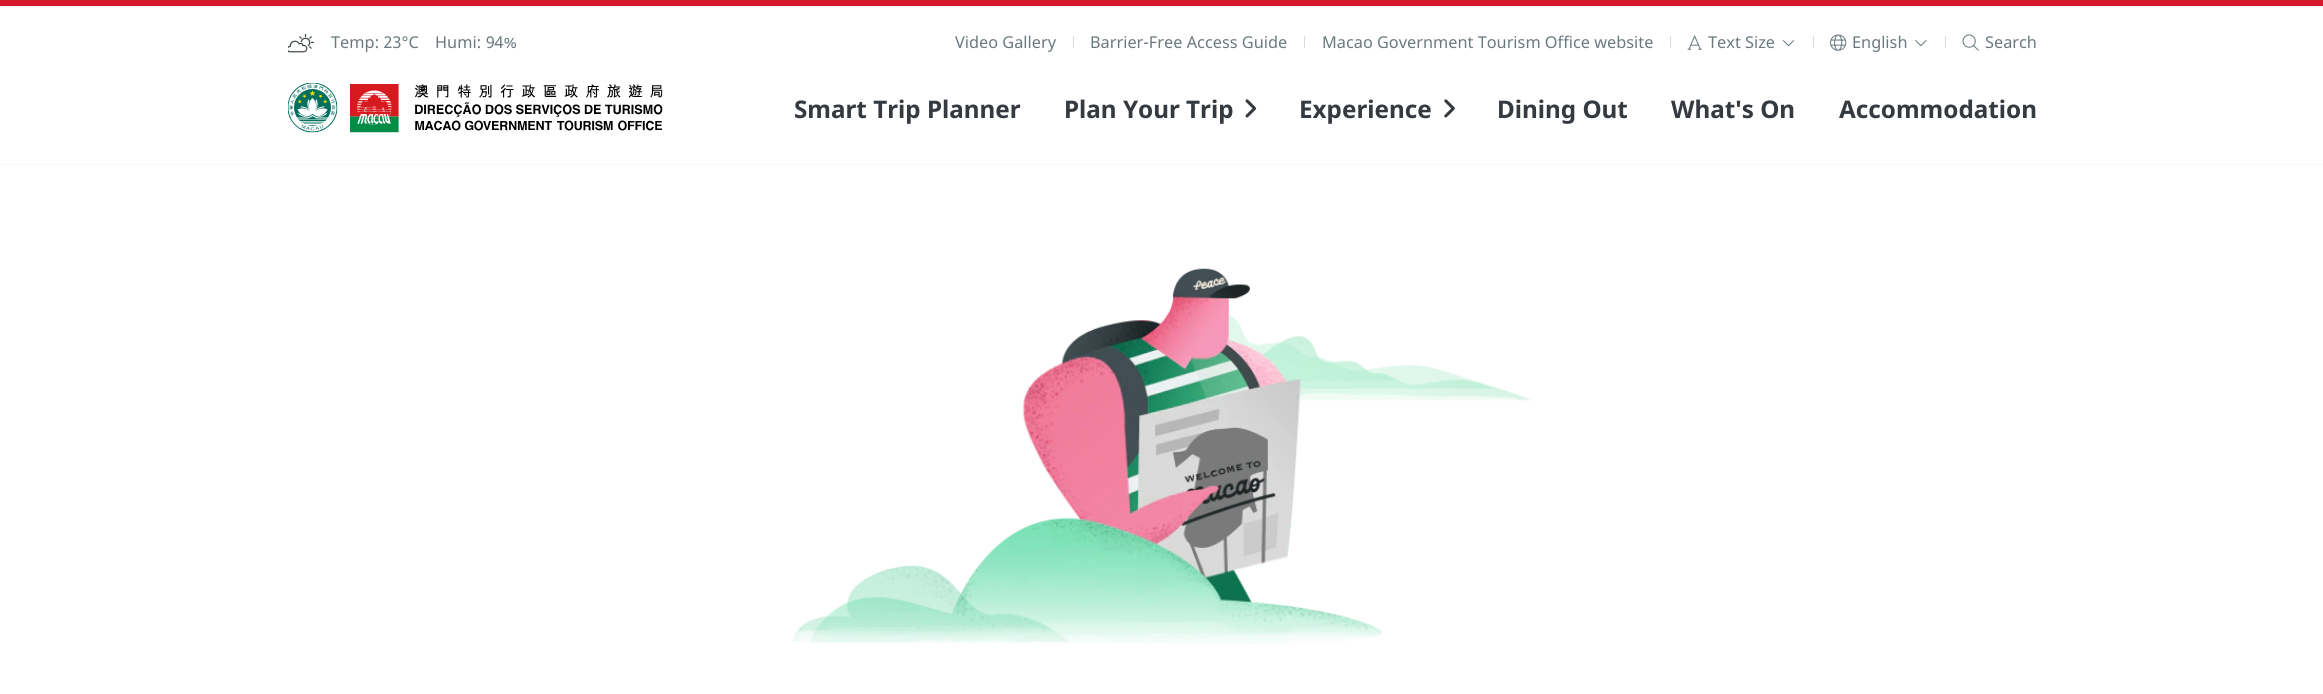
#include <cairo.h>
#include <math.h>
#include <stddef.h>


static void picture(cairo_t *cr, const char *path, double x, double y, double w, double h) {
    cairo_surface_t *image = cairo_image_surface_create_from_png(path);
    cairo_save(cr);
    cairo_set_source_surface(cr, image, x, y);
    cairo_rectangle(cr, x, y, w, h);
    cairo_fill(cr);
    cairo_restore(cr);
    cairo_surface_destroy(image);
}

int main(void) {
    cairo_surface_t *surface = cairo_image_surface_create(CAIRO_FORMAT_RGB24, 2323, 694);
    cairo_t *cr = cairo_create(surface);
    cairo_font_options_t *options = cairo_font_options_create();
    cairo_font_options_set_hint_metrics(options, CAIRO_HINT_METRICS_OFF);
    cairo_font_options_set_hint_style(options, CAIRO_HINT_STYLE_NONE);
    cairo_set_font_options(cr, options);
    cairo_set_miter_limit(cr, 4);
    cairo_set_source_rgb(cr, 1, 1, 1);
    cairo_paint(cr);
    cairo_set_source_rgb(cr, 0.843, 0.098, 0.18);
    cairo_rectangle(cr, 0, 0, 2323, 6);
    cairo_fill(cr);
    cairo_set_source_rgb(cr, 0.976, 0.969, 0.957);
    cairo_rectangle(cr, 0, 164, 2323, 1);
    cairo_fill(cr);
    picture(cr, "img1.png", 288, 34, 26, 19);
    cairo_select_font_face(cr, "Noto Sans", CAIRO_FONT_SLANT_NORMAL, CAIRO_FONT_WEIGHT_NORMAL);
    cairo_set_font_size(cr, 16.3);
    cairo_set_source_rgb(cr, 0.412, 0.475, 0.494);
    cairo_move_to(cr, 331, 48);
    cairo_show_text(cr, "Temp: 23°C");
    cairo_move_to(cr, 435, 48);
    cairo_show_text(cr, "Humi: 94%");
    cairo_move_to(cr, 955, 48);
    cairo_show_text(cr, "Video Gallery");
    cairo_set_source_rgb(cr, 0.855, 0.855, 0.855);
    cairo_rectangle(cr, 1073, 36, 1, 12);
    cairo_fill(cr);
    cairo_set_source_rgb(cr, 0.412, 0.475, 0.494);
    cairo_move_to(cr, 1090, 48);
    cairo_show_text(cr, "Barrier-Free Access Guide");
    cairo_set_source_rgb(cr, 0.855, 0.855, 0.855);
    cairo_rectangle(cr, 1304, 36, 1, 12);
    cairo_fill(cr);
    cairo_set_source_rgb(cr, 0.412, 0.475, 0.494);
    cairo_move_to(cr, 1322, 48);
    cairo_show_text(cr, "Macao Government Tourism Office website");
    cairo_set_source_rgb(cr, 0.855, 0.855, 0.855);
    cairo_rectangle(cr, 1670, 36, 1, 12);
    cairo_fill(cr);
    picture(cr, "img2.png", 1687, 35, 15, 15);
    cairo_set_source_rgb(cr, 0.412, 0.475, 0.494);
    cairo_move_to(cr, 1708, 48);
    cairo_show_text(cr, "Text Size");
    picture(cr, "img3.png", 1782, 40, 12, 7);
    cairo_set_source_rgb(cr, 0.855, 0.855, 0.855);
    cairo_rectangle(cr, 1813, 36, 1, 12);
    cairo_fill(cr);
    picture(cr, "img4.png", 1830, 34, 17, 17);
    cairo_set_source_rgb(cr, 0.412, 0.475, 0.494);
    cairo_move_to(cr, 1852, 48);
    cairo_show_text(cr, "English");
    picture(cr, "img5.png", 1915, 40, 12, 7);
    cairo_set_source_rgb(cr, 0.855, 0.855, 0.855);
    cairo_rectangle(cr, 1945, 36, 1, 12);
    cairo_fill(cr);
    picture(cr, "img6.png", 1962, 34, 17, 17);
    cairo_set_source_rgb(cr, 0.412, 0.475, 0.494);
    cairo_move_to(cr, 1985, 48);
    cairo_show_text(cr, "Search");
    picture(cr, "img7.png", 288, 83, 50, 50);
    picture(cr, "img8.png", 350, 84, 313, 49);
    cairo_select_font_face(cr, "Noto Sans", CAIRO_FONT_SLANT_NORMAL, CAIRO_FONT_WEIGHT_BOLD);
    cairo_set_font_size(cr, 24.25);
    cairo_set_source_rgb(cr, 0.204, 0.227, 0.251);
    cairo_move_to(cr, 794, 118);
    cairo_show_text(cr, "Smart Trip Planner");
    cairo_move_to(cr, 1064, 118);
    cairo_show_text(cr, "Plan Your Trip");
    picture(cr, "img9.png", 1245, 99, 12, 19);
    cairo_move_to(cr, 1299, 118);
    cairo_show_text(cr, "Experience");
    picture(cr, "img10.png", 1444, 99, 11, 19);
    cairo_move_to(cr, 1497, 118);
    cairo_show_text(cr, "Dining Out");
    cairo_move_to(cr, 1671, 118);
    cairo_show_text(cr, "What's On");
    cairo_move_to(cr, 1839, 118);
    cairo_show_text(cr, "Accommodation");
    picture(cr, "img11.png", 792, 268, 739, 376);
    cairo_surface_write_to_png(surface, "page.png");
    cairo_font_options_destroy(options);
    cairo_destroy(cr);
    cairo_surface_destroy(surface);
    return 0;
}
